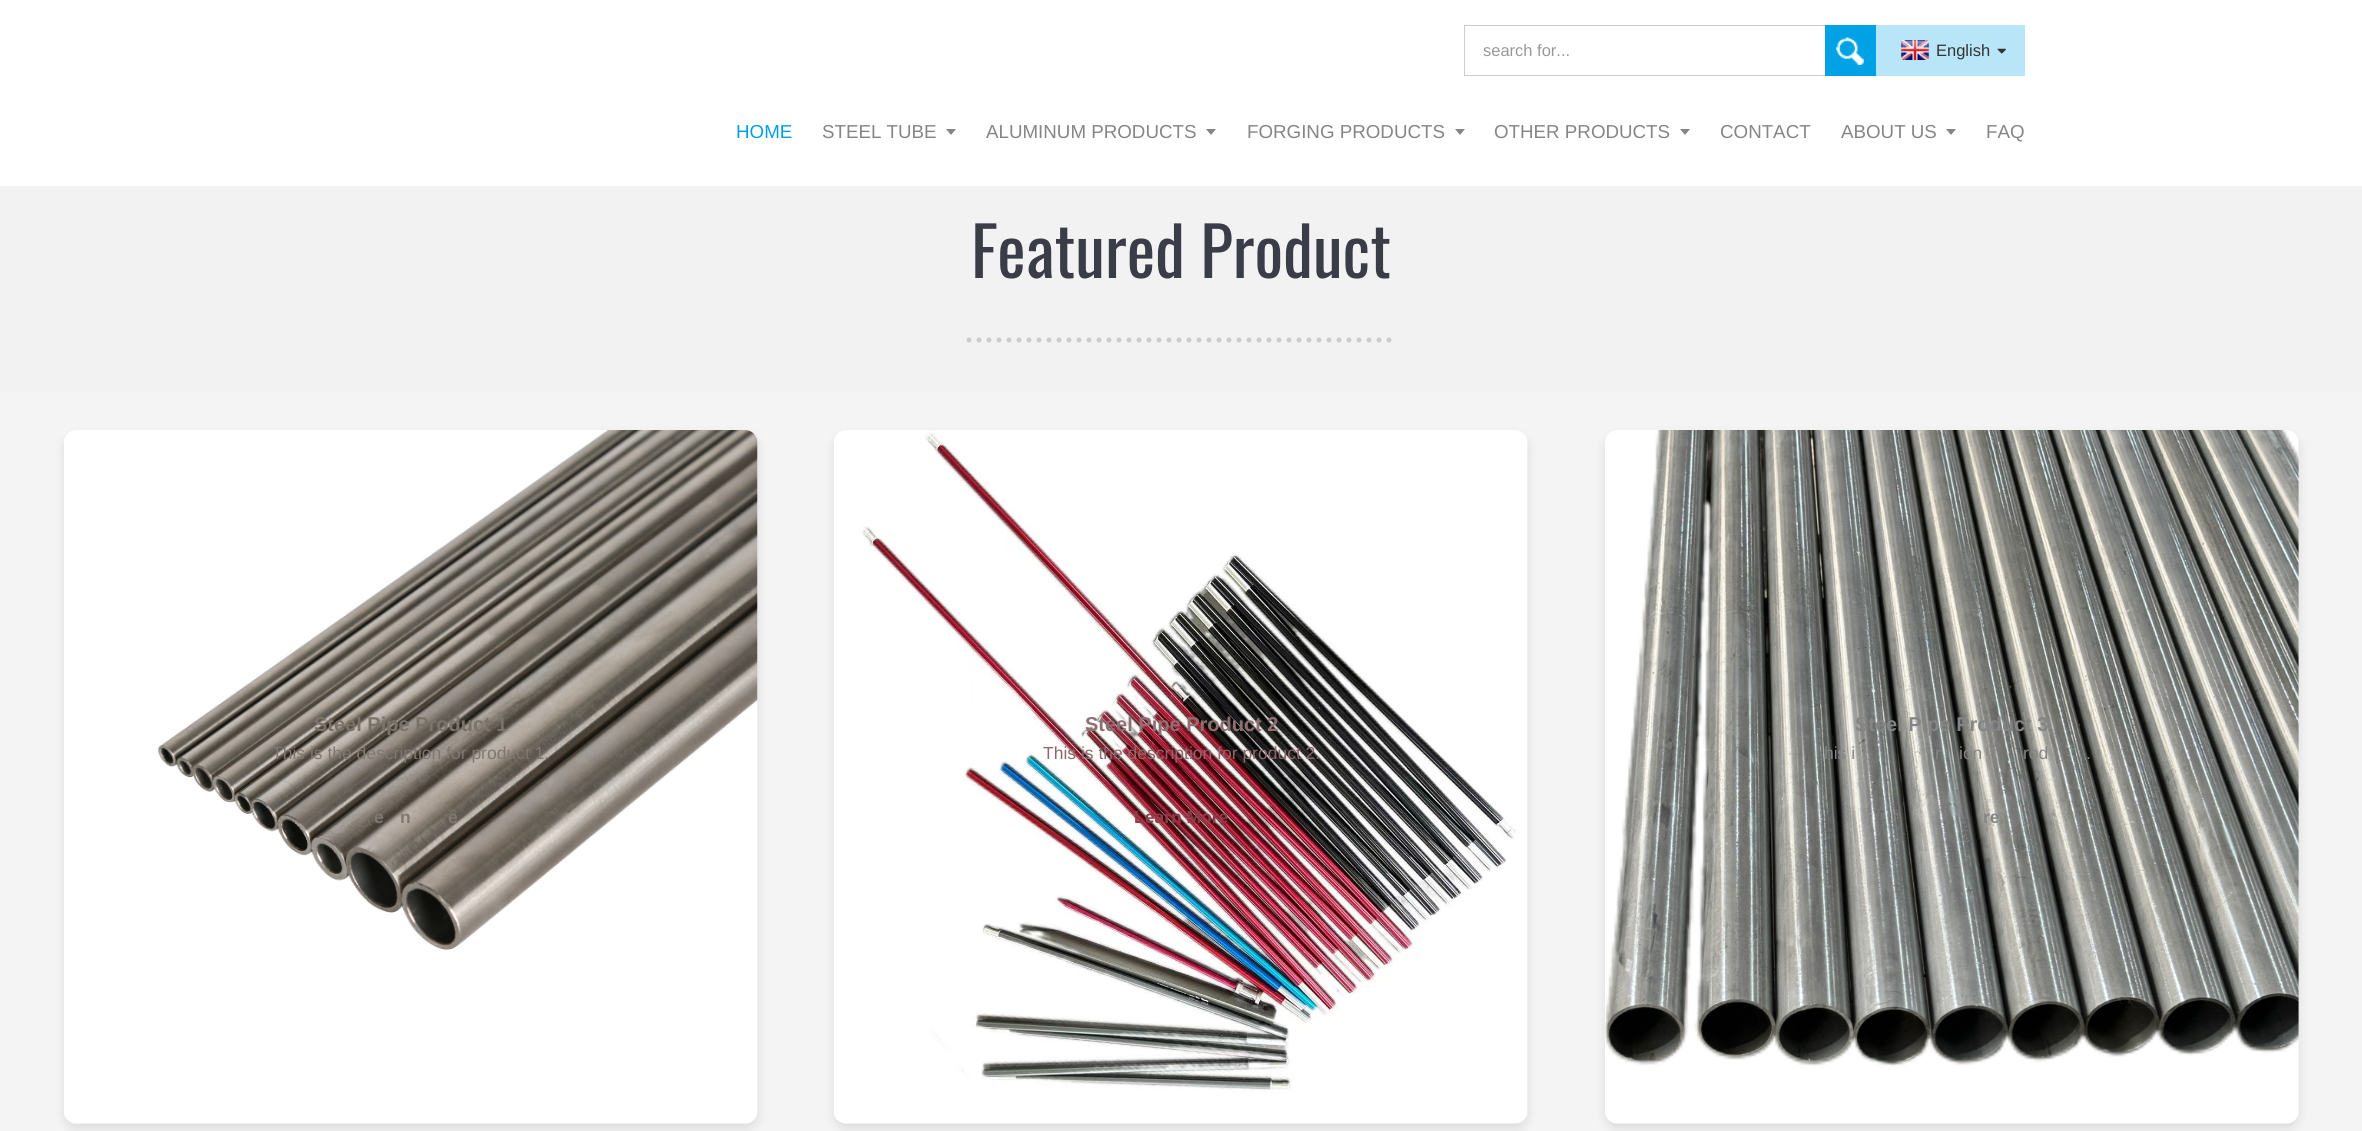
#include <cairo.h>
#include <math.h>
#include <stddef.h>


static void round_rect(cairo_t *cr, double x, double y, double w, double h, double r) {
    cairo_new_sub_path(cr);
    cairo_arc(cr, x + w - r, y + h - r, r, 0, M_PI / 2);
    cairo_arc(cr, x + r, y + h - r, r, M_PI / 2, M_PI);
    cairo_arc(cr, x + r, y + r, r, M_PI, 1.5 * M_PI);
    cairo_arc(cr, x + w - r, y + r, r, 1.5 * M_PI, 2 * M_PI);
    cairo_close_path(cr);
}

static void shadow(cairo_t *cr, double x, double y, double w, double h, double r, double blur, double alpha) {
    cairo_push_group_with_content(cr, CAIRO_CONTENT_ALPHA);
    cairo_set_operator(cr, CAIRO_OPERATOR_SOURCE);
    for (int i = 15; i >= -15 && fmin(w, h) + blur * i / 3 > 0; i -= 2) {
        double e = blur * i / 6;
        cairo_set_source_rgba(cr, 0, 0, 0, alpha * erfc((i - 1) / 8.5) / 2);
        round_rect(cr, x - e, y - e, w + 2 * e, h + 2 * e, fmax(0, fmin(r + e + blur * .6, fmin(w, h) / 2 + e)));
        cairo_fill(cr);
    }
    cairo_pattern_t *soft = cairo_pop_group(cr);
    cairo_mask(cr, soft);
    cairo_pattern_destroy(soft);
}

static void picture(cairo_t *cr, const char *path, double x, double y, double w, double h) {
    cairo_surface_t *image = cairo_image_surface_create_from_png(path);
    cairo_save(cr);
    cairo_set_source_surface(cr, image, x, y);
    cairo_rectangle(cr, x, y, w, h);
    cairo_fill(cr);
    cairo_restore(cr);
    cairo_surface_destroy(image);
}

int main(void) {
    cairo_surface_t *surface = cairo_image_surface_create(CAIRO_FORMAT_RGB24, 2362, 1131);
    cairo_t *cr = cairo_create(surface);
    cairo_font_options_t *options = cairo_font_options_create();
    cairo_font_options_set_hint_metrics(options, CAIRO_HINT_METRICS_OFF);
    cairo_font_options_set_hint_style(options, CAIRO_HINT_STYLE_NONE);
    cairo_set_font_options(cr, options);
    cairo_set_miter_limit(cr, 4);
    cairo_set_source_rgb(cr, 1, 1, 1);
    cairo_paint(cr);
    cairo_rectangle(cr, 1464.5, 25.5, 361, 50);
    cairo_set_source_rgb(cr, 0.804, 0.804, 0.804);
    cairo_set_line_width(cr, 1);
    cairo_stroke(cr);
    cairo_select_font_face(cr, "Liberation Sans", CAIRO_FONT_SLANT_NORMAL, CAIRO_FONT_WEIGHT_NORMAL);
    cairo_set_font_size(cr, 16.5);
    cairo_set_source_rgb(cr, 0.6, 0.6, 0.6);
    cairo_move_to(cr, 1483, 56);
    cairo_show_text(cr, "search for...");
    cairo_set_source_rgb(cr, 0, 0.635, 0.898);
    cairo_rectangle(cr, 1825, 25, 51, 51);
    cairo_fill(cr);
    picture(cr, "img1.png", 1836, 37, 28, 28);
    cairo_set_source_rgb(cr, 0.722, 0.902, 0.969);
    cairo_rectangle(cr, 1876, 25, 149, 51);
    cairo_fill(cr);
    picture(cr, "img2.png", 1901, 40, 28, 20);
    cairo_set_source_rgb(cr, 0.2, 0.2, 0.2);
    cairo_move_to(cr, 1936, 56);
    cairo_show_text(cr, "English");
    picture(cr, "img3.png", 1997, 48, 9, 6);
    cairo_set_font_size(cr, 18.75);
    cairo_set_source_rgb(cr, 0.008, 0.627, 0.882);
    cairo_move_to(cr, 736, 138);
    cairo_show_text(cr, "HOME");
    cairo_set_source_rgb(cr, 0.522, 0.522, 0.522);
    cairo_move_to(cr, 822, 138);
    cairo_show_text(cr, "STEEL TUBE");
    cairo_new_path(cr);
    cairo_move_to(cr, 946, 129);
    cairo_line_to(cr, 956, 129);
    cairo_line_to(cr, 951, 135);
    cairo_close_path(cr);
    cairo_fill(cr);
    cairo_move_to(cr, 986, 138);
    cairo_show_text(cr, "ALUMINUM PRODUCTS");
    cairo_new_path(cr);
    cairo_move_to(cr, 1206, 129);
    cairo_line_to(cr, 1216, 129);
    cairo_line_to(cr, 1211, 135);
    cairo_close_path(cr);
    cairo_fill(cr);
    cairo_move_to(cr, 1247, 138);
    cairo_show_text(cr, "FORGING PRODUCTS");
    cairo_new_path(cr);
    cairo_move_to(cr, 1455, 129);
    cairo_line_to(cr, 1465, 129);
    cairo_line_to(cr, 1460, 135);
    cairo_close_path(cr);
    cairo_fill(cr);
    cairo_move_to(cr, 1494, 138);
    cairo_show_text(cr, "OTHER PRODUCTS");
    cairo_new_path(cr);
    cairo_move_to(cr, 1680, 129);
    cairo_line_to(cr, 1690, 129);
    cairo_line_to(cr, 1685, 135);
    cairo_close_path(cr);
    cairo_fill(cr);
    cairo_move_to(cr, 1720, 138);
    cairo_show_text(cr, "CONTACT");
    cairo_move_to(cr, 1841, 138);
    cairo_show_text(cr, "ABOUT US");
    cairo_new_path(cr);
    cairo_move_to(cr, 1946, 129);
    cairo_line_to(cr, 1956, 129);
    cairo_line_to(cr, 1951, 135);
    cairo_close_path(cr);
    cairo_fill(cr);
    cairo_move_to(cr, 1986, 138);
    cairo_show_text(cr, "FAQ");
    cairo_set_source_rgb(cr, 0.949, 0.949, 0.949);
    cairo_rectangle(cr, 0, 186, 2362, 207);
    cairo_fill(cr);
    cairo_select_font_face(cr, "Oswald", CAIRO_FONT_SLANT_NORMAL, CAIRO_FONT_WEIGHT_NORMAL);
    cairo_set_font_size(cr, 67.5);
    cairo_set_source_rgb(cr, 0.227, 0.235, 0.278);
    cairo_move_to(cr, 971, 278);
    cairo_show_text(cr, "Featured Product");
    cairo_new_path(cr);
    cairo_move_to(cr, 969, 340);
    cairo_line_to(cr, 1394, 340);
    cairo_set_source_rgb(cr, 0.8, 0.8, 0.8);
    cairo_set_line_width(cr, 5);
    cairo_set_line_cap(cr, CAIRO_LINE_CAP_ROUND);
    cairo_set_dash(cr, (double[]){0, 10}, 2, 0);
    cairo_stroke(cr);
    cairo_set_source_rgb(cr, 0.957, 0.957, 0.957);
    cairo_rectangle(cr, 0, 393, 2362, 738);
    cairo_fill(cr);
    cairo_set_source_rgb(cr, 0, 0, 0);
    shadow(cr, 64, 435, 694, 694, 13, 5, 0.1);
    picture(cr, "img4.png", 64, 430, 694, 694);
    cairo_select_font_face(cr, "Liberation Sans", CAIRO_FONT_SLANT_NORMAL, CAIRO_FONT_WEIGHT_BOLD);
    cairo_set_font_size(cr, 20);
    cairo_set_source_rgb(cr, 0.478, 0.451, 0.416);
    cairo_move_to(cr, 314, 731);
    cairo_show_text(cr, "Steel Pipe Product 1");
    cairo_select_font_face(cr, "Liberation Sans", CAIRO_FONT_SLANT_NORMAL, CAIRO_FONT_WEIGHT_NORMAL);
    cairo_set_font_size(cr, 17.5);
    cairo_set_source_rgb(cr, 0.502, 0.471, 0.439);
    cairo_move_to(cr, 272, 759);
    cairo_show_text(cr, "This is the description for product 1.");
    cairo_select_font_face(cr, "Liberation Sans", CAIRO_FONT_SLANT_NORMAL, CAIRO_FONT_WEIGHT_BOLD);
    cairo_move_to(cr, 374, 823);
    cairo_show_text(cr, "e");
    cairo_move_to(cr, 400, 823);
    cairo_show_text(cr, "n");
    cairo_move_to(cr, 448, 823);
    cairo_show_text(cr, "e");
    cairo_set_source_rgb(cr, 0, 0, 0);
    shadow(cr, 834, 435, 694, 694, 13, 5, 0.1);
    picture(cr, "img5.png", 834, 430, 694, 694);
    cairo_set_font_size(cr, 20);
    cairo_set_source_rgb(cr, 0.557, 0.439, 0.451);
    cairo_move_to(cr, 1085, 731);
    cairo_show_text(cr, "Steel Pipe Product 2");
    cairo_select_font_face(cr, "Liberation Sans", CAIRO_FONT_SLANT_NORMAL, CAIRO_FONT_WEIGHT_NORMAL);
    cairo_set_font_size(cr, 17.5);
    cairo_set_source_rgb(cr, 0.557, 0.408, 0.424);
    cairo_move_to(cr, 1043, 759);
    cairo_show_text(cr, "This is the description for product 2.");
    cairo_select_font_face(cr, "Liberation Sans", CAIRO_FONT_SLANT_NORMAL, CAIRO_FONT_WEIGHT_BOLD);
    cairo_set_source_rgb(cr, 0.545, 0.243, 0.282);
    cairo_move_to(cr, 1134, 823);
    cairo_show_text(cr, "Learn More");
    cairo_set_source_rgb(cr, 0, 0, 0);
    shadow(cr, 1605, 435, 694, 694, 13, 5, 0.1);
    picture(cr, "img6.png", 1605, 430, 694, 694);
    cairo_set_font_size(cr, 20);
    cairo_set_source_rgb(cr, 0.522, 0.522, 0.522);
    cairo_move_to(cr, 1855, 731);
    cairo_show_text(cr, "Steel Pipe Product 3");
    cairo_select_font_face(cr, "Liberation Sans", CAIRO_FONT_SLANT_NORMAL, CAIRO_FONT_WEIGHT_NORMAL);
    cairo_set_font_size(cr, 17.5);
    cairo_move_to(cr, 1824, 759);
    cairo_show_text(cr, "his i");
    cairo_move_to(cr, 1935, 759);
    cairo_show_text(cr, "r");
    cairo_move_to(cr, 1959, 759);
    cairo_show_text(cr, "ion");
    cairo_move_to(cr, 2023, 759);
    cairo_show_text(cr, "rod");
    cairo_move_to(cr, 2086, 759);
    cairo_show_text(cr, ".");
    cairo_select_font_face(cr, "Liberation Sans", CAIRO_FONT_SLANT_NORMAL, CAIRO_FONT_WEIGHT_BOLD);
    cairo_move_to(cr, 1983, 823);
    cairo_show_text(cr, "re");
    cairo_surface_write_to_png(surface, "page.png");
    cairo_font_options_destroy(options);
    cairo_destroy(cr);
    cairo_surface_destroy(surface);
    return 0;
}
